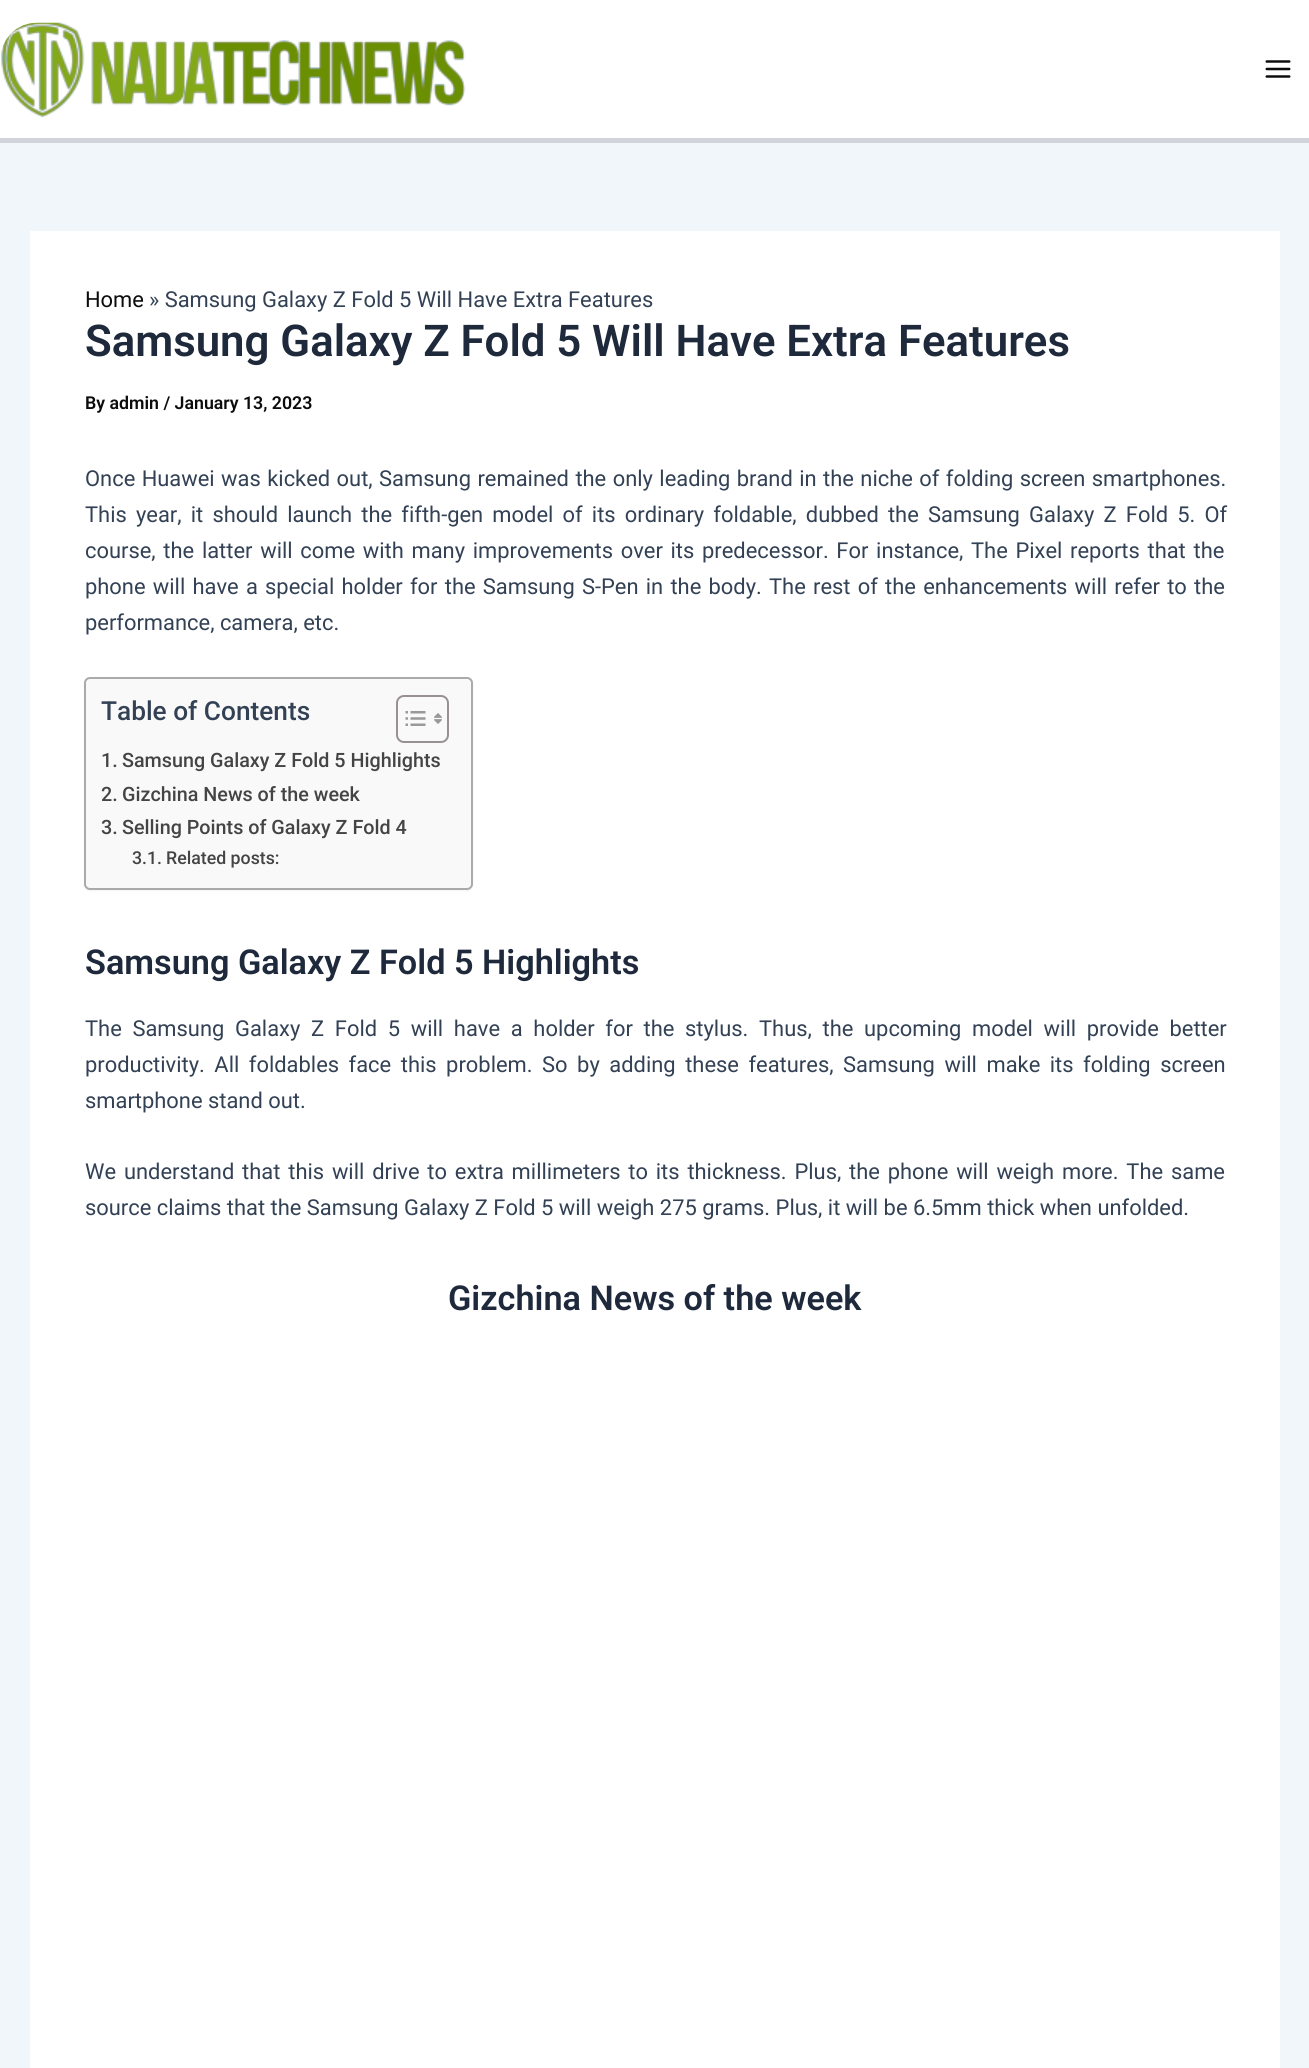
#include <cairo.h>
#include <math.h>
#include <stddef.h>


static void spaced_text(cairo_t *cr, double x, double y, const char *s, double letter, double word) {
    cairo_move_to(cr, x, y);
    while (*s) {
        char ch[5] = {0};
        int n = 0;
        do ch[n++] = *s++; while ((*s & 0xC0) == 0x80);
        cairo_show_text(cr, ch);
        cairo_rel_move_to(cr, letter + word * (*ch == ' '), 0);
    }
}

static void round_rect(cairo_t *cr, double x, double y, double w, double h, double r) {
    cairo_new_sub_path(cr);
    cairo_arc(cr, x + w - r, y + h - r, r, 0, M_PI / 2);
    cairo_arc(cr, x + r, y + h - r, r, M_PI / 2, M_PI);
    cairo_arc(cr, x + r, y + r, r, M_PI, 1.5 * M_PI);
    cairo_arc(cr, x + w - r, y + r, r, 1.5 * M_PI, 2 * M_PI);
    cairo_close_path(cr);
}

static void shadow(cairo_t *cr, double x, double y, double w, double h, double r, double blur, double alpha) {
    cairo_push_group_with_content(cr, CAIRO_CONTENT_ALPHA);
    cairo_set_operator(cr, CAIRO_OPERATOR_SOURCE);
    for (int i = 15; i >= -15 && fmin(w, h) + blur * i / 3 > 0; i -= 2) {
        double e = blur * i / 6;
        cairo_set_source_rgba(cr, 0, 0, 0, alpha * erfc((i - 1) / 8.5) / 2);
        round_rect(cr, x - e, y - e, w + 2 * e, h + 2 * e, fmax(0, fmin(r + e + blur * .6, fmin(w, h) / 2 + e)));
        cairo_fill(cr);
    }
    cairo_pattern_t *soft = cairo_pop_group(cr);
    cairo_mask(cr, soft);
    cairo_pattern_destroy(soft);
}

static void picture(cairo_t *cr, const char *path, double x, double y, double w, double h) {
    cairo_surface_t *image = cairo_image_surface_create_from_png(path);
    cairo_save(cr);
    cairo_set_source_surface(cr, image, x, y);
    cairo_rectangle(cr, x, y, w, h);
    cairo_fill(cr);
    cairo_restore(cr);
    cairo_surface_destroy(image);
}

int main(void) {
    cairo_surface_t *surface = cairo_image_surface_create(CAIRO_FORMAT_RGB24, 1309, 2068);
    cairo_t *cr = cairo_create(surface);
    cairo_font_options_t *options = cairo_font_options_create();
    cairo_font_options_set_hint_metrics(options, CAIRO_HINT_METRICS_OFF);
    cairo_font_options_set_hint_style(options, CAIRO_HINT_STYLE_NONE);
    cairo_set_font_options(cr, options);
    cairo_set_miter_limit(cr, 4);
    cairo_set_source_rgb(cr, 0.941, 0.961, 0.98);
    cairo_paint(cr);
    cairo_set_source_rgb(cr, 1, 1, 1);
    cairo_rectangle(cr, 0, 0, 1309, 138);
    cairo_fill(cr);
    cairo_set_source_rgb(cr, 0.82, 0.835, 0.859);
    cairo_rectangle(cr, 0, 138, 1309, 5);
    cairo_fill(cr);
    picture(cr, "img1.png", 1, 22, 465, 95);
    picture(cr, "img2.png", 1265, 60, 26, 18);
    cairo_set_source_rgb(cr, 1, 1, 1);
    cairo_rectangle(cr, 30, 231, 1250, 1837);
    cairo_fill(cr);
    cairo_select_font_face(cr, "Roboto", CAIRO_FONT_SLANT_NORMAL, CAIRO_FONT_WEIGHT_NORMAL);
    cairo_set_font_size(cr, 21.9);
    cairo_set_source_rgb(cr, 0.047, 0.047, 0.047);
    cairo_move_to(cr, 85, 307);
    cairo_show_text(cr, "Home");
    cairo_set_source_rgb(cr, 0.2, 0.255, 0.333);
    cairo_move_to(cr, 149, 307);
    cairo_show_text(cr, "» Samsung Galaxy Z Fold 5 Will Have Extra Features");
    cairo_select_font_face(cr, "Roboto SemiBold", CAIRO_FONT_SLANT_NORMAL, CAIRO_FONT_WEIGHT_NORMAL);
    cairo_set_font_size(cr, 43.75);
    cairo_set_source_rgb(cr, 0.118, 0.161, 0.231);
    cairo_move_to(cr, 85, 356);
    cairo_show_text(cr, "Samsung Galaxy Z Fold 5 Will Have Extra Features");
    cairo_set_font_size(cr, 17.75);
    cairo_set_source_rgb(cr, 0.047, 0.047, 0.047);
    cairo_move_to(cr, 85, 409);
    cairo_show_text(cr, "By admin / January 13, 2023");
    cairo_select_font_face(cr, "Roboto", CAIRO_FONT_SLANT_NORMAL, CAIRO_FONT_WEIGHT_NORMAL);
    cairo_set_font_size(cr, 21.9);
    cairo_set_source_rgb(cr, 0.2, 0.255, 0.333);
    spaced_text(cr, 85, 486, "Once Huawei was kicked out, Samsung remained the only leading brand in the niche of folding screen smartphones.", 0, 1);
    spaced_text(cr, 85, 522, "This year, it should launch the fifth-gen model of its ordinary foldable, dubbed the Samsung Galaxy Z Fold 5. Of", 0, 3.75);
    spaced_text(cr, 85, 558, "course, the latter will come with many improvements over its predecessor. For instance, The Pixel reports that the", 0, 2.25);
    spaced_text(cr, 85, 594, "phone will have a special holder for the Samsung S-Pen in the body. The rest of the enhancements will refer to the", 0, 1.8);
    cairo_move_to(cr, 85, 630);
    cairo_show_text(cr, "performance, camera, etc.");
    cairo_set_source_rgb(cr, 0, 0, 0);
    shadow(cr, 84, 678, 389, 213, 6, 1, 0.05);
    cairo_set_source_rgb(cr, 0.976, 0.976, 0.976);
    round_rect(cr, 85, 678, 387, 211, 5);
    cairo_fill_preserve(cr);
    cairo_set_source_rgb(cr, 0.667, 0.667, 0.667);
    cairo_stroke(cr);
    cairo_select_font_face(cr, "Roboto Medium", CAIRO_FONT_SLANT_NORMAL, CAIRO_FONT_WEIGHT_NORMAL);
    cairo_set_font_size(cr, 26.25);
    cairo_set_source_rgb(cr, 0.2, 0.255, 0.333);
    cairo_move_to(cr, 101, 720);
    cairo_show_text(cr, "Table of Contents");
    round_rect(cr, 397, 696, 51, 46, 7);
    cairo_set_source_rgb(cr, 0.6, 0.569, 0.569);
    cairo_stroke(cr);
    picture(cr, "img3.png", 405, 711, 21, 15);
    picture(cr, "img4.png", 434, 713, 8, 11);
    cairo_set_font_size(cr, 19.75);
    cairo_set_source_rgb(cr, 0.267, 0.267, 0.267);
    cairo_move_to(cr, 101, 767);
    cairo_show_text(cr, "1.");
    cairo_move_to(cr, 122, 767);
    cairo_show_text(cr, "Samsung Galaxy Z Fold 5 Highlights");
    cairo_move_to(cr, 101, 801);
    cairo_show_text(cr, "2.");
    cairo_move_to(cr, 122, 801);
    cairo_show_text(cr, "Gizchina News of the week");
    cairo_move_to(cr, 101, 834);
    cairo_show_text(cr, "3.");
    cairo_move_to(cr, 122, 834);
    cairo_show_text(cr, "Selling Points of Galaxy Z Fold 4");
    cairo_set_font_size(cr, 17.75);
    cairo_move_to(cr, 132, 864);
    cairo_show_text(cr, "3.1.");
    cairo_move_to(cr, 166, 864);
    cairo_show_text(cr, "Related posts:");
    cairo_select_font_face(cr, "Roboto SemiBold", CAIRO_FONT_SLANT_NORMAL, CAIRO_FONT_WEIGHT_NORMAL);
    cairo_set_font_size(cr, 34.25);
    cairo_set_source_rgb(cr, 0.118, 0.161, 0.231);
    cairo_move_to(cr, 85, 974);
    cairo_show_text(cr, "Samsung Galaxy Z Fold 5 Highlights");
    cairo_select_font_face(cr, "Roboto", CAIRO_FONT_SLANT_NORMAL, CAIRO_FONT_WEIGHT_NORMAL);
    cairo_set_font_size(cr, 21.9);
    cairo_set_source_rgb(cr, 0.2, 0.255, 0.333);
    spaced_text(cr, 85, 1036, "The Samsung Galaxy Z Fold 5 will have a holder for the stylus. Thus, the upcoming model will provide better", 0, 5.25);
    spaced_text(cr, 85, 1072, "productivity. All foldables face this problem. So by adding these features, Samsung will make its folding screen", 0, 4.1);
    cairo_move_to(cr, 85, 1108);
    cairo_show_text(cr, "smartphone stand out.");
    spaced_text(cr, 85, 1179, "We understand that this will drive to extra millimeters to its thickness. Plus, the phone will weigh more. The same", 0, 2.4);
    cairo_move_to(cr, 85, 1215);
    cairo_show_text(cr, "source claims that the Samsung Galaxy Z Fold 5 will weigh 275 grams. Plus, it will be 6.5mm thick when unfolded.");
    cairo_select_font_face(cr, "Roboto SemiBold", CAIRO_FONT_SLANT_NORMAL, CAIRO_FONT_WEIGHT_NORMAL);
    cairo_set_font_size(cr, 34.25);
    cairo_set_source_rgb(cr, 0.118, 0.161, 0.231);
    cairo_move_to(cr, 448, 1310);
    cairo_show_text(cr, "Gizchina News of the week");
    cairo_surface_write_to_png(surface, "page.png");
    cairo_font_options_destroy(options);
    cairo_destroy(cr);
    cairo_surface_destroy(surface);
    return 0;
}
